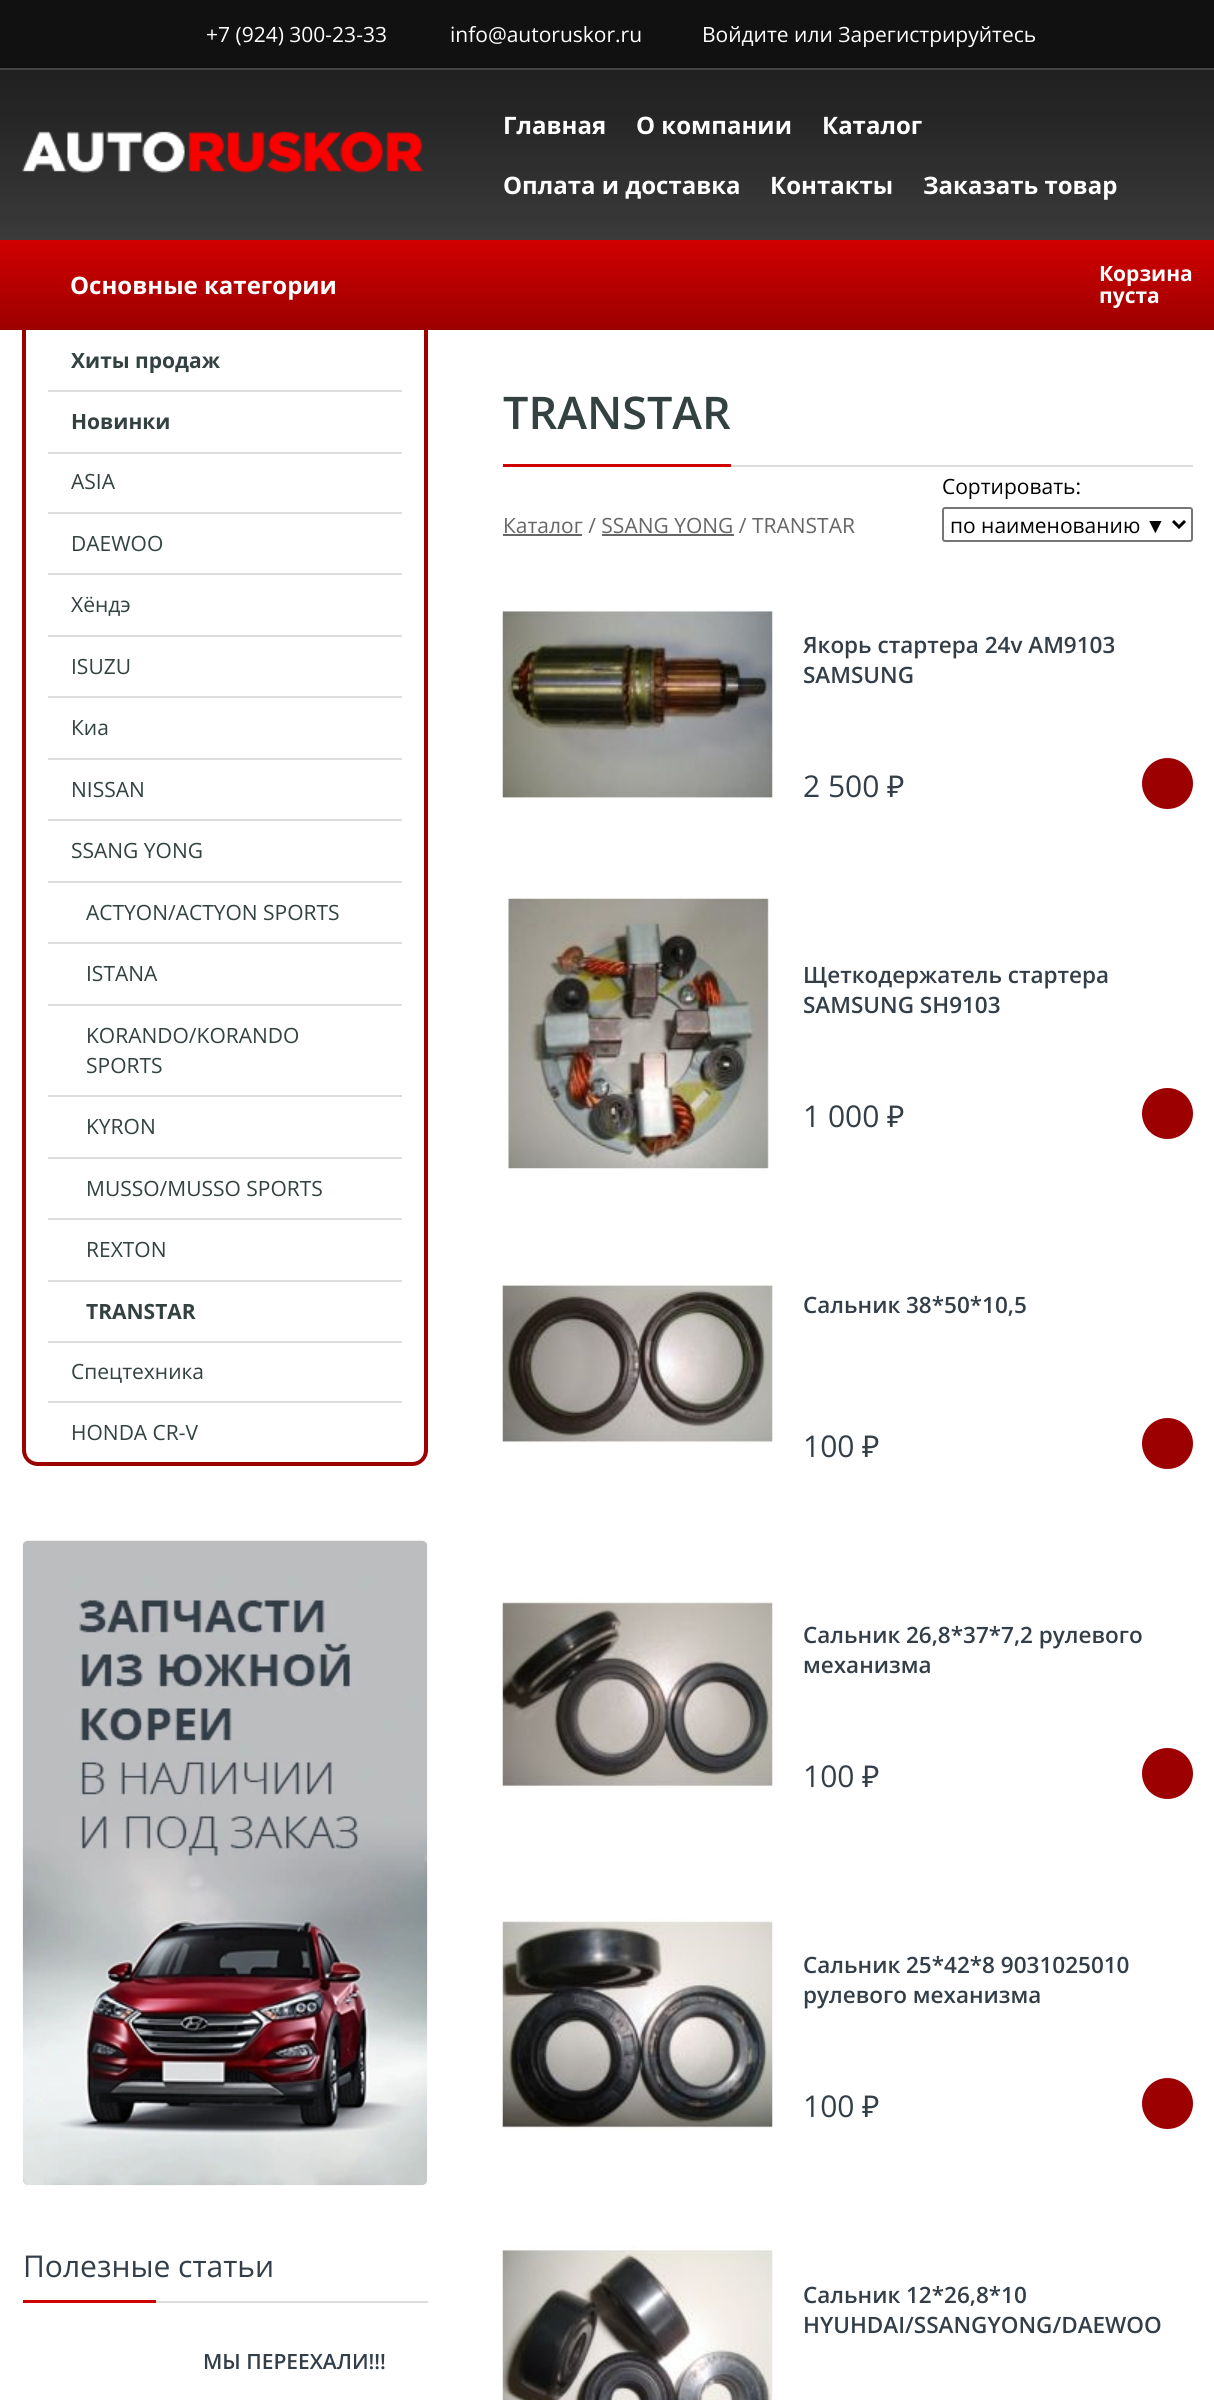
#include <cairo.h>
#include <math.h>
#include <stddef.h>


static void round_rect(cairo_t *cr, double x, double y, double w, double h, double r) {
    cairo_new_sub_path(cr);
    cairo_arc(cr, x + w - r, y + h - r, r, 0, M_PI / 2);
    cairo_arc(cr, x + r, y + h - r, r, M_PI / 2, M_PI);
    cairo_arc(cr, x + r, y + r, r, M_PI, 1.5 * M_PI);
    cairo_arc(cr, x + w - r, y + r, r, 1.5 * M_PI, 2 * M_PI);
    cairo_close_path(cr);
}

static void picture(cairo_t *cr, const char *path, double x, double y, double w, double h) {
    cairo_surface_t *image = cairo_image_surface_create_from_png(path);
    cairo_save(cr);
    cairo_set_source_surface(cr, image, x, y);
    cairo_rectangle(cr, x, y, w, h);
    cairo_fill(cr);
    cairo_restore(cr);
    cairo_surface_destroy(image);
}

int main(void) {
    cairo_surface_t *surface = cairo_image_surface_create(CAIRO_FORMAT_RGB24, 1214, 2400);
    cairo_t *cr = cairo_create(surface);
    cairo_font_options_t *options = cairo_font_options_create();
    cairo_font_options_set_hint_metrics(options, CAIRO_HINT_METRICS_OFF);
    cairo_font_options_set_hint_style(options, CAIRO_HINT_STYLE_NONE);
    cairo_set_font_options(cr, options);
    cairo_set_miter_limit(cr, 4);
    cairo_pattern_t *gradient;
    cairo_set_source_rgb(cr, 1, 1, 1);
    cairo_paint(cr);
    picture(cr, "img1.png", 0, 70, 1214, 170);
    cairo_set_source_rgb(cr, 0.067, 0.067, 0.067);
    cairo_rectangle(cr, 0, 0, 1214, 68);
    cairo_fill(cr);
    cairo_set_source_rgb(cr, 0.267, 0.267, 0.267);
    cairo_rectangle(cr, 0, 68, 1214, 2);
    cairo_fill(cr);
    cairo_select_font_face(cr, "Open Sans", CAIRO_FONT_SLANT_NORMAL, CAIRO_FONT_WEIGHT_NORMAL);
    cairo_set_font_size(cr, 21);
    cairo_set_source_rgb(cr, 1, 1, 1);
    cairo_move_to(cr, 206, 42);
    cairo_show_text(cr, "+7 (924) 300-23-33");
    cairo_move_to(cr, 450, 42);
    cairo_show_text(cr, "info@autoruskor.ru");
    cairo_move_to(cr, 702, 42);
    cairo_show_text(cr, "Войдите или Зарегистрируйтесь");
    picture(cr, "img2.png", 22, 131, 402, 42);
    cairo_select_font_face(cr, "Open Sans", CAIRO_FONT_SLANT_NORMAL, CAIRO_FONT_WEIGHT_BOLD);
    cairo_set_font_size(cr, 24);
    cairo_move_to(cr, 503, 134);
    cairo_show_text(cr, "Главная");
    cairo_move_to(cr, 636, 134);
    cairo_show_text(cr, "О компании");
    cairo_move_to(cr, 822, 134);
    cairo_show_text(cr, "Каталог");
    cairo_move_to(cr, 503, 194);
    cairo_show_text(cr, "Оплата и доставка");
    cairo_move_to(cr, 770, 194);
    cairo_show_text(cr, "Контакты");
    cairo_move_to(cr, 923, 194);
    cairo_show_text(cr, "Заказать товар");
    gradient = cairo_pattern_create_linear(0, 330, 0, 240);
    cairo_pattern_add_color_stop_rgba(gradient, 0, 0.612, 0, 0, 1);
    cairo_pattern_add_color_stop_rgba(gradient, 1, 0.82, 0, 0, 1);
    cairo_set_source(cr, gradient);
    cairo_pattern_destroy(gradient);
    cairo_rectangle(cr, 0, 240, 1214, 90);
    cairo_fill(cr);
    cairo_set_source_rgb(cr, 1, 1, 1);
    cairo_move_to(cr, 70, 294);
    cairo_show_text(cr, "Основные категории");
    cairo_set_font_size(cr, 21);
    cairo_move_to(cr, 1099, 281);
    cairo_show_text(cr, "Корзина");
    cairo_move_to(cr, 1099, 303);
    cairo_show_text(cr, "пуста");
    cairo_set_source_rgb(cr, 0.612, 0, 0);
    cairo_set_fill_rule(cr, CAIRO_FILL_RULE_EVEN_ODD);
    cairo_new_path(cr);
    cairo_move_to(cr, 22, 330);
    cairo_line_to(cr, 428, 330);
    cairo_line_to(cr, 428, 1450);
    cairo_curve_to(cr, 428, 1459, 421, 1466, 412, 1466);
    cairo_line_to(cr, 38, 1466);
    cairo_curve_to(cr, 29, 1466, 22, 1459, 22, 1450);
    cairo_close_path(cr);
    cairo_move_to(cr, 26, 330);
    cairo_line_to(cr, 424, 330);
    cairo_line_to(cr, 424, 1450);
    cairo_curve_to(cr, 424, 1457, 419, 1462, 412, 1462);
    cairo_line_to(cr, 38, 1462);
    cairo_curve_to(cr, 31, 1462, 26, 1457, 26, 1450);
    cairo_close_path(cr);
    cairo_fill(cr);
    cairo_set_source_rgb(cr, 0.2, 0.255, 0.255);
    cairo_move_to(cr, 71, 368);
    cairo_show_text(cr, "Хиты продаж");
    cairo_set_source_rgb(cr, 0.867, 0.867, 0.867);
    cairo_rectangle(cr, 48, 390, 354, 2);
    cairo_fill(cr);
    cairo_set_source_rgb(cr, 0.2, 0.255, 0.255);
    cairo_move_to(cr, 71, 429);
    cairo_show_text(cr, "Новинки");
    cairo_set_source_rgb(cr, 0.867, 0.867, 0.867);
    cairo_rectangle(cr, 48, 452, 354, 2);
    cairo_fill(cr);
    cairo_select_font_face(cr, "Open Sans", CAIRO_FONT_SLANT_NORMAL, CAIRO_FONT_WEIGHT_NORMAL);
    cairo_set_source_rgb(cr, 0.2, 0.255, 0.255);
    cairo_move_to(cr, 71, 489);
    cairo_show_text(cr, "ASIA");
    cairo_set_source_rgb(cr, 0.867, 0.867, 0.867);
    cairo_rectangle(cr, 48, 512, 354, 2);
    cairo_fill(cr);
    cairo_set_source_rgb(cr, 0.2, 0.255, 0.255);
    cairo_move_to(cr, 71, 551);
    cairo_show_text(cr, "DAEWOO");
    cairo_set_source_rgb(cr, 0.867, 0.867, 0.867);
    cairo_rectangle(cr, 48, 573, 354, 2);
    cairo_fill(cr);
    cairo_set_source_rgb(cr, 0.2, 0.255, 0.255);
    cairo_move_to(cr, 71, 612);
    cairo_show_text(cr, "Хёндэ");
    cairo_set_source_rgb(cr, 0.867, 0.867, 0.867);
    cairo_rectangle(cr, 48, 635, 354, 2);
    cairo_fill(cr);
    cairo_set_source_rgb(cr, 0.2, 0.255, 0.255);
    cairo_move_to(cr, 71, 674);
    cairo_show_text(cr, "ISUZU");
    cairo_set_source_rgb(cr, 0.867, 0.867, 0.867);
    cairo_rectangle(cr, 48, 696, 354, 2);
    cairo_fill(cr);
    cairo_set_source_rgb(cr, 0.2, 0.255, 0.255);
    cairo_move_to(cr, 71, 735);
    cairo_show_text(cr, "Киа");
    cairo_set_source_rgb(cr, 0.867, 0.867, 0.867);
    cairo_rectangle(cr, 48, 758, 354, 2);
    cairo_fill(cr);
    cairo_set_source_rgb(cr, 0.2, 0.255, 0.255);
    cairo_move_to(cr, 71, 797);
    cairo_show_text(cr, "NISSAN");
    cairo_set_source_rgb(cr, 0.867, 0.867, 0.867);
    cairo_rectangle(cr, 48, 819, 354, 2);
    cairo_fill(cr);
    cairo_set_source_rgb(cr, 0.2, 0.255, 0.255);
    cairo_move_to(cr, 71, 858);
    cairo_show_text(cr, "SSANG YONG");
    cairo_set_source_rgb(cr, 0.867, 0.867, 0.867);
    cairo_rectangle(cr, 48, 881, 354, 2);
    cairo_fill(cr);
    cairo_set_source_rgb(cr, 0.2, 0.255, 0.255);
    cairo_move_to(cr, 86, 920);
    cairo_show_text(cr, "ACTYON/ACTYON SPORTS");
    cairo_set_source_rgb(cr, 0.867, 0.867, 0.867);
    cairo_rectangle(cr, 48, 942, 354, 2);
    cairo_fill(cr);
    cairo_set_source_rgb(cr, 0.2, 0.255, 0.255);
    cairo_move_to(cr, 86, 981);
    cairo_show_text(cr, "ISTANA");
    cairo_set_source_rgb(cr, 0.867, 0.867, 0.867);
    cairo_rectangle(cr, 48, 1004, 354, 2);
    cairo_fill(cr);
    cairo_set_source_rgb(cr, 0.2, 0.255, 0.255);
    cairo_move_to(cr, 86, 1043);
    cairo_show_text(cr, "KORANDO/KORANDO");
    cairo_move_to(cr, 86, 1073);
    cairo_show_text(cr, "SPORTS");
    cairo_set_source_rgb(cr, 0.867, 0.867, 0.867);
    cairo_rectangle(cr, 48, 1095, 354, 2);
    cairo_fill(cr);
    cairo_set_source_rgb(cr, 0.2, 0.255, 0.255);
    cairo_move_to(cr, 86, 1134);
    cairo_show_text(cr, "KYRON");
    cairo_set_source_rgb(cr, 0.867, 0.867, 0.867);
    cairo_rectangle(cr, 48, 1157, 354, 2);
    cairo_fill(cr);
    cairo_set_source_rgb(cr, 0.2, 0.255, 0.255);
    cairo_move_to(cr, 86, 1196);
    cairo_show_text(cr, "MUSSO/MUSSO SPORTS");
    cairo_set_source_rgb(cr, 0.867, 0.867, 0.867);
    cairo_rectangle(cr, 48, 1218, 354, 2);
    cairo_fill(cr);
    cairo_set_source_rgb(cr, 0.2, 0.255, 0.255);
    cairo_move_to(cr, 86, 1257);
    cairo_show_text(cr, "REXTON");
    cairo_set_source_rgb(cr, 0.867, 0.867, 0.867);
    cairo_rectangle(cr, 48, 1280, 354, 2);
    cairo_fill(cr);
    cairo_select_font_face(cr, "Open Sans", CAIRO_FONT_SLANT_NORMAL, CAIRO_FONT_WEIGHT_BOLD);
    cairo_set_source_rgb(cr, 0.2, 0.255, 0.255);
    cairo_move_to(cr, 86, 1319);
    cairo_show_text(cr, "TRANSTAR");
    cairo_set_source_rgb(cr, 0.867, 0.867, 0.867);
    cairo_rectangle(cr, 48, 1341, 354, 2);
    cairo_fill(cr);
    cairo_select_font_face(cr, "Open Sans", CAIRO_FONT_SLANT_NORMAL, CAIRO_FONT_WEIGHT_NORMAL);
    cairo_set_source_rgb(cr, 0.2, 0.255, 0.255);
    cairo_move_to(cr, 71, 1379);
    cairo_show_text(cr, "Спецтехника");
    cairo_set_source_rgb(cr, 0.867, 0.867, 0.867);
    cairo_rectangle(cr, 48, 1401, 354, 2);
    cairo_fill(cr);
    cairo_set_source_rgb(cr, 0.2, 0.255, 0.255);
    cairo_move_to(cr, 71, 1440);
    cairo_show_text(cr, "HONDA CR-V");
    picture(cr, "img3.png", 22, 1540, 406, 646);
    cairo_set_source_rgb(cr, 0.867, 0.867, 0.867);
    cairo_rectangle(cr, 156, 2301, 272, 2);
    cairo_fill(cr);
    cairo_set_font_size(cr, 30);
    cairo_set_source_rgb(cr, 0.2, 0.243, 0.282);
    cairo_move_to(cr, 23, 2277);
    cairo_show_text(cr, "Полезные статьи");
    cairo_set_source_rgb(cr, 0.808, 0, 0);
    cairo_rectangle(cr, 23, 2300, 133, 3);
    cairo_fill(cr);
    cairo_select_font_face(cr, "Open Sans SemiBold", CAIRO_FONT_SLANT_NORMAL, CAIRO_FONT_WEIGHT_NORMAL);
    cairo_set_font_size(cr, 21);
    cairo_set_source_rgb(cr, 0.2, 0.243, 0.282);
    cairo_move_to(cr, 203, 2369);
    cairo_show_text(cr, "МЫ ПЕРЕЕХАЛИ!!!");
    cairo_set_source_rgb(cr, 0.867, 0.867, 0.867);
    cairo_rectangle(cr, 731, 465, 462, 2);
    cairo_fill(cr);
    cairo_set_font_size(cr, 45);
    cairo_set_source_rgb(cr, 0.2, 0.255, 0.255);
    cairo_move_to(cr, 503, 429);
    cairo_show_text(cr, "TRANSTAR");
    cairo_set_source_rgb(cr, 0.808, 0, 0);
    cairo_rectangle(cr, 503, 464, 228, 3);
    cairo_fill(cr);
    cairo_select_font_face(cr, "Open Sans", CAIRO_FONT_SLANT_NORMAL, CAIRO_FONT_WEIGHT_NORMAL);
    cairo_set_font_size(cr, 21);
    cairo_set_source_rgb(cr, 0.4, 0.4, 0.4);
    cairo_move_to(cr, 503, 533);
    cairo_show_text(cr, "Каталог / SSANG YONG / TRANSTAR");
    cairo_rectangle(cr, 503, 534, 79, 2);
    cairo_fill(cr);
    cairo_rectangle(cr, 602, 534, 132, 2);
    cairo_fill(cr);
    cairo_set_source_rgb(cr, 0, 0, 0);
    cairo_move_to(cr, 942, 494);
    cairo_show_text(cr, "Сортировать:");
    round_rect(cr, 943, 508, 249, 33, 2);
    cairo_set_source_rgb(cr, 0.463, 0.463, 0.463);
    cairo_stroke(cr);
    cairo_new_path(cr);
    cairo_move_to(cr, 1173, 521);
    cairo_line_to(cr, 1179, 527);
    cairo_line_to(cr, 1185, 521);
    cairo_set_source_rgb(cr, 0, 0, 0);
    cairo_set_line_width(cr, 3);
    cairo_stroke(cr);
    cairo_move_to(cr, 950, 533);
    cairo_show_text(cr, "по наименованию");
    cairo_select_font_face(cr, "Liberation Sans", CAIRO_FONT_SLANT_NORMAL, CAIRO_FONT_WEIGHT_NORMAL);
    cairo_move_to(cr, 1145, 533);
    cairo_show_text(cr, "▼");
    picture(cr, "img4.png", 502, 610, 271, 188);
    cairo_select_font_face(cr, "Open Sans SemiBold", CAIRO_FONT_SLANT_NORMAL, CAIRO_FONT_WEIGHT_NORMAL);
    cairo_set_font_size(cr, 22.5);
    cairo_set_source_rgb(cr, 0.2, 0.243, 0.282);
    cairo_move_to(cr, 803, 653);
    cairo_show_text(cr, "Якорь стартера 24v АМ9103");
    cairo_move_to(cr, 803, 683);
    cairo_show_text(cr, "SAMSUNG");
    cairo_select_font_face(cr, "Open Sans", CAIRO_FONT_SLANT_NORMAL, CAIRO_FONT_WEIGHT_NORMAL);
    cairo_set_font_size(cr, 30);
    cairo_move_to(cr, 803, 797);
    cairo_show_text(cr, "2 500");
    cairo_select_font_face(cr, "Noto Sans", CAIRO_FONT_SLANT_NORMAL, CAIRO_FONT_WEIGHT_NORMAL);
    cairo_move_to(cr, 887, 797);
    cairo_show_text(cr, "₽");
    cairo_set_source_rgb(cr, 0.612, 0, 0);
    cairo_new_path(cr);
    cairo_arc(cr, 1167.5, 783.5, 25.5, 0, 2 * M_PI);
    cairo_fill(cr);
    picture(cr, "img5.png", 506, 898, 263, 271);
    cairo_select_font_face(cr, "Open Sans SemiBold", CAIRO_FONT_SLANT_NORMAL, CAIRO_FONT_WEIGHT_NORMAL);
    cairo_set_font_size(cr, 22.5);
    cairo_set_source_rgb(cr, 0.2, 0.243, 0.282);
    cairo_move_to(cr, 803, 983);
    cairo_show_text(cr, "Щеткодержатель стартера");
    cairo_move_to(cr, 803, 1013);
    cairo_show_text(cr, "SAMSUNG SH9103");
    cairo_select_font_face(cr, "Open Sans", CAIRO_FONT_SLANT_NORMAL, CAIRO_FONT_WEIGHT_NORMAL);
    cairo_set_font_size(cr, 30);
    cairo_move_to(cr, 803, 1127);
    cairo_show_text(cr, "1 000");
    cairo_select_font_face(cr, "Noto Sans", CAIRO_FONT_SLANT_NORMAL, CAIRO_FONT_WEIGHT_NORMAL);
    cairo_move_to(cr, 887, 1127);
    cairo_show_text(cr, "₽");
    cairo_set_source_rgb(cr, 0.612, 0, 0);
    cairo_new_path(cr);
    cairo_arc(cr, 1167.5, 1113.5, 25.5, 0, 2 * M_PI);
    cairo_fill(cr);
    picture(cr, "img6.png", 502, 1283, 271, 161);
    cairo_select_font_face(cr, "Open Sans SemiBold", CAIRO_FONT_SLANT_NORMAL, CAIRO_FONT_WEIGHT_NORMAL);
    cairo_set_font_size(cr, 22.5);
    cairo_set_source_rgb(cr, 0.2, 0.243, 0.282);
    cairo_move_to(cr, 803, 1313);
    cairo_show_text(cr, "Сальник 38*50*10,5");
    cairo_select_font_face(cr, "Open Sans", CAIRO_FONT_SLANT_NORMAL, CAIRO_FONT_WEIGHT_NORMAL);
    cairo_set_font_size(cr, 30);
    cairo_move_to(cr, 803, 1457);
    cairo_show_text(cr, "100");
    cairo_select_font_face(cr, "Noto Sans", CAIRO_FONT_SLANT_NORMAL, CAIRO_FONT_WEIGHT_NORMAL);
    cairo_move_to(cr, 862, 1457);
    cairo_show_text(cr, "₽");
    cairo_set_source_rgb(cr, 0.612, 0, 0);
    cairo_new_path(cr);
    cairo_arc(cr, 1167.5, 1443.5, 25.5, 0, 2 * M_PI);
    cairo_fill(cr);
    picture(cr, "img7.png", 502, 1599, 271, 189);
    cairo_select_font_face(cr, "Open Sans SemiBold", CAIRO_FONT_SLANT_NORMAL, CAIRO_FONT_WEIGHT_NORMAL);
    cairo_set_font_size(cr, 22.5);
    cairo_set_source_rgb(cr, 0.2, 0.243, 0.282);
    cairo_move_to(cr, 803, 1643);
    cairo_show_text(cr, "Сальник 26,8*37*7,2 рулевого");
    cairo_move_to(cr, 803, 1673);
    cairo_show_text(cr, "механизма");
    cairo_select_font_face(cr, "Open Sans", CAIRO_FONT_SLANT_NORMAL, CAIRO_FONT_WEIGHT_NORMAL);
    cairo_set_font_size(cr, 30);
    cairo_move_to(cr, 803, 1787);
    cairo_show_text(cr, "100");
    cairo_select_font_face(cr, "Noto Sans", CAIRO_FONT_SLANT_NORMAL, CAIRO_FONT_WEIGHT_NORMAL);
    cairo_move_to(cr, 862, 1787);
    cairo_show_text(cr, "₽");
    cairo_set_source_rgb(cr, 0.612, 0, 0);
    cairo_new_path(cr);
    cairo_arc(cr, 1167.5, 1773.5, 25.5, 0, 2 * M_PI);
    cairo_fill(cr);
    picture(cr, "img8.png", 502, 1919, 271, 211);
    cairo_select_font_face(cr, "Open Sans SemiBold", CAIRO_FONT_SLANT_NORMAL, CAIRO_FONT_WEIGHT_NORMAL);
    cairo_set_font_size(cr, 22.5);
    cairo_set_source_rgb(cr, 0.2, 0.243, 0.282);
    cairo_move_to(cr, 803, 1973);
    cairo_show_text(cr, "Сальник 25*42*8 9031025010");
    cairo_move_to(cr, 803, 2003);
    cairo_show_text(cr, "рулевого механизма");
    cairo_select_font_face(cr, "Open Sans", CAIRO_FONT_SLANT_NORMAL, CAIRO_FONT_WEIGHT_NORMAL);
    cairo_set_font_size(cr, 30);
    cairo_move_to(cr, 803, 2117);
    cairo_show_text(cr, "100");
    cairo_select_font_face(cr, "Noto Sans", CAIRO_FONT_SLANT_NORMAL, CAIRO_FONT_WEIGHT_NORMAL);
    cairo_move_to(cr, 862, 2117);
    cairo_show_text(cr, "₽");
    cairo_set_source_rgb(cr, 0.612, 0, 0);
    cairo_new_path(cr);
    cairo_arc(cr, 1167.5, 2103.5, 25.5, 0, 2 * M_PI);
    cairo_fill(cr);
    picture(cr, "img9.png", 502, 2245, 271, 155);
    cairo_select_font_face(cr, "Open Sans SemiBold", CAIRO_FONT_SLANT_NORMAL, CAIRO_FONT_WEIGHT_NORMAL);
    cairo_set_font_size(cr, 22.5);
    cairo_set_source_rgb(cr, 0.2, 0.243, 0.282);
    cairo_move_to(cr, 803, 2303);
    cairo_show_text(cr, "Сальник 12*26,8*10");
    cairo_move_to(cr, 803, 2333);
    cairo_show_text(cr, "HYUHDAI/SSANGYONG/DAEWOO");
    cairo_surface_write_to_png(surface, "page.png");
    cairo_font_options_destroy(options);
    cairo_destroy(cr);
    cairo_surface_destroy(surface);
    return 0;
}
